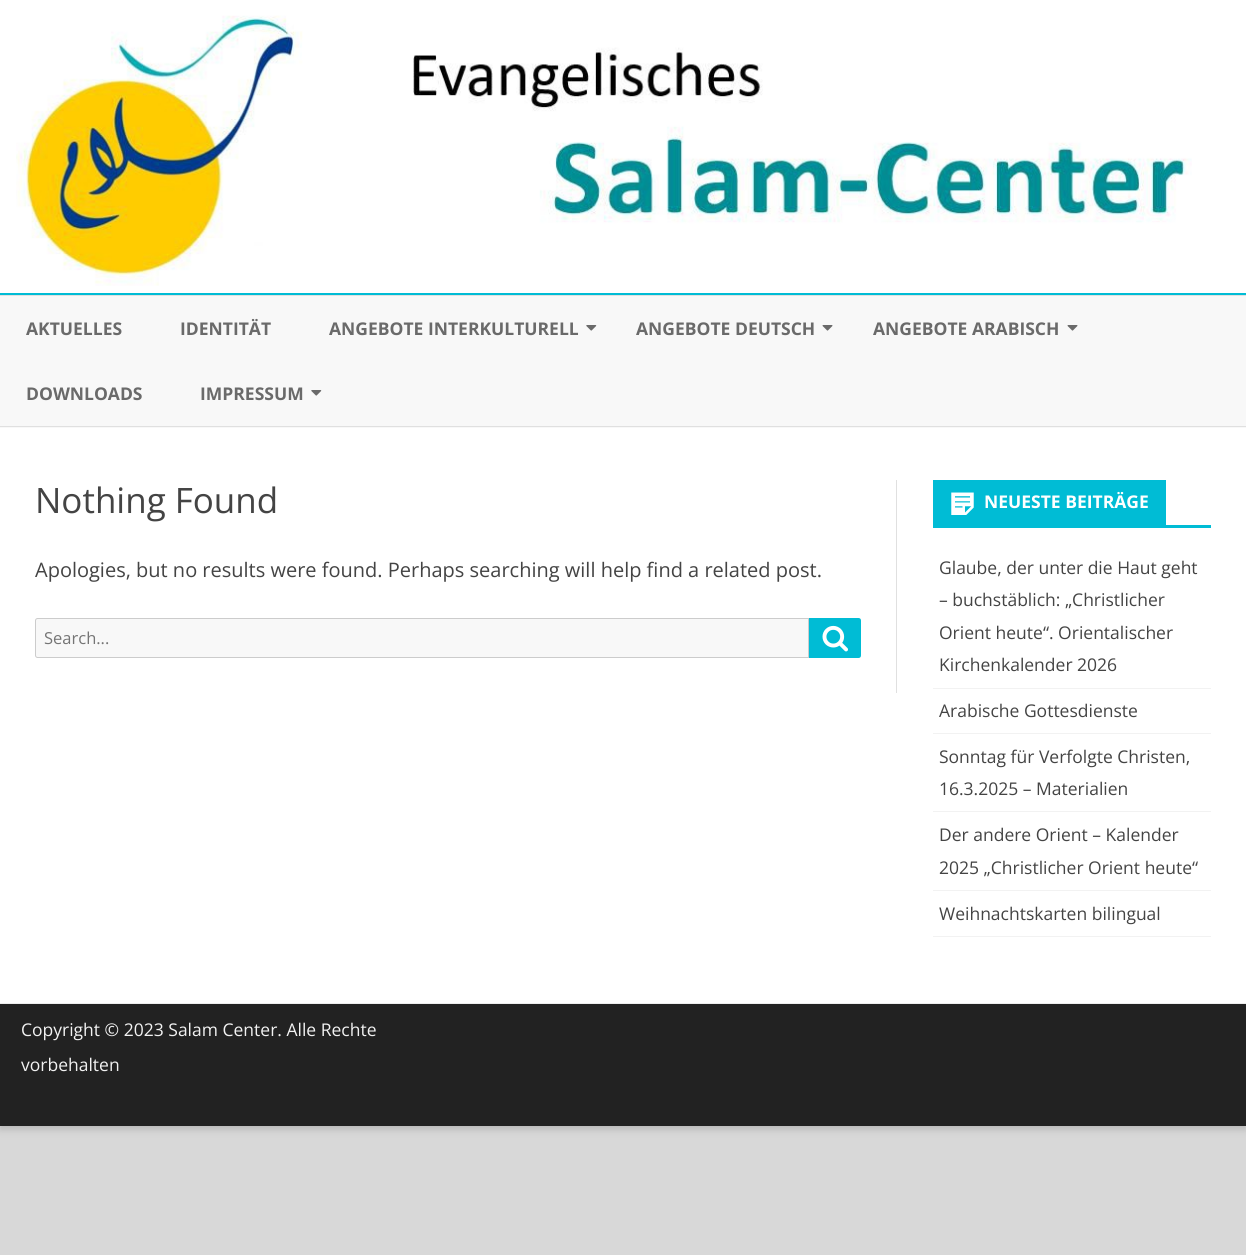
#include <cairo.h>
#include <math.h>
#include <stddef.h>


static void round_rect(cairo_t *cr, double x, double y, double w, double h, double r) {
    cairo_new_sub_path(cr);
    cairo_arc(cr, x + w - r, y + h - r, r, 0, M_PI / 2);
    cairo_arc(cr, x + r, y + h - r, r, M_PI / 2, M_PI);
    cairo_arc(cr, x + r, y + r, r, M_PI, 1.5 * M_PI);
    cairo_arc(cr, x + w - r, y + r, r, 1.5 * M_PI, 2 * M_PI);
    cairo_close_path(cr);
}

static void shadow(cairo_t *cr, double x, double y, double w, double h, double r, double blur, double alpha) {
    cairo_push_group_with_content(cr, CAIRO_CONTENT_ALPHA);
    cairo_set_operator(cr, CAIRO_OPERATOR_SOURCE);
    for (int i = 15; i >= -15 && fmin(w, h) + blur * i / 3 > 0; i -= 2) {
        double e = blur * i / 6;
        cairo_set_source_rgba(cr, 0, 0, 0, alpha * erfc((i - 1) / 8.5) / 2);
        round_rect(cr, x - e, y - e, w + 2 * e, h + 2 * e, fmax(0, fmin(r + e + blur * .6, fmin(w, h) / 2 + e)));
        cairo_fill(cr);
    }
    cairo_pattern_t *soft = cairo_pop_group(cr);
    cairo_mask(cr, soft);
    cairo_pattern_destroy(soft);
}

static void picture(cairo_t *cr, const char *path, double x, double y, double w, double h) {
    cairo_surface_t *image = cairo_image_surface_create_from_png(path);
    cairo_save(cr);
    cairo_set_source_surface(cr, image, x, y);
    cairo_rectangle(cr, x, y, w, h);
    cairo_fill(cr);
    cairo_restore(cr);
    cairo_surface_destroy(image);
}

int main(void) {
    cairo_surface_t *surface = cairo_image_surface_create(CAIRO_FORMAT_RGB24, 1246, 1255);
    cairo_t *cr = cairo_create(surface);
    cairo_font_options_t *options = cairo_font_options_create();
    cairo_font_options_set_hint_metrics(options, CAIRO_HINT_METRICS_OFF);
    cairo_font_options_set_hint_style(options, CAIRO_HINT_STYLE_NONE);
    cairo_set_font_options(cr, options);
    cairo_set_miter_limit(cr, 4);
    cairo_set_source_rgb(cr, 0.847, 0.847, 0.847);
    cairo_paint(cr);
    cairo_set_source_rgb(cr, 0.392, 0.392, 0.392);
    shadow(cr, 0, 3, 1246, 1126, 0, 4, 0.3);
    cairo_set_source_rgb(cr, 1, 1, 1);
    cairo_rectangle(cr, 0, 0, 1246, 1003);
    cairo_fill(cr);
    picture(cr, "img1.png", 16, 15, 1176, 271);
    cairo_set_source_rgb(cr, 0.969, 0.969, 0.969);
    cairo_rectangle(cr, 0, 296, 1246, 132);
    cairo_fill(cr);
    cairo_set_source_rgb(cr, 0, 0.737, 0.835);
    cairo_rectangle(cr, 0, 293, 1246, 2);
    cairo_fill(cr);
    cairo_set_source_rgb(cr, 0.878, 0.878, 0.878);
    cairo_rectangle(cr, 0, 295, 1246, 1);
    cairo_fill(cr);
    cairo_rectangle(cr, 0, 426, 1246, 1);
    cairo_fill(cr);
    cairo_select_font_face(cr, "Open Sans", CAIRO_FONT_SLANT_NORMAL, CAIRO_FONT_WEIGHT_BOLD);
    cairo_set_font_size(cr, 17.5);
    cairo_set_source_rgb(cr, 0.416, 0.416, 0.416);
    cairo_move_to(cr, 26, 335);
    cairo_show_text(cr, "AKTUELLES");
    cairo_move_to(cr, 180, 335);
    cairo_show_text(cr, "IDENTITÄT");
    cairo_move_to(cr, 329, 335);
    cairo_show_text(cr, "ANGEBOTE INTERKULTURELL");
    picture(cr, "img2.png", 586, 325, 11, 6);
    cairo_move_to(cr, 636, 335);
    cairo_show_text(cr, "ANGEBOTE DEUTSCH");
    picture(cr, "img3.png", 822, 325, 11, 6);
    cairo_move_to(cr, 873, 335);
    cairo_show_text(cr, "ANGEBOTE ARABISCH");
    picture(cr, "img3.png", 1067, 325, 11, 6);
    cairo_move_to(cr, 26, 400);
    cairo_show_text(cr, "DOWNLOADS");
    cairo_move_to(cr, 200, 400);
    cairo_show_text(cr, "IMPRESSUM");
    picture(cr, "img2.png", 311, 390, 11, 6);
    cairo_set_source_rgb(cr, 0.878, 0.878, 0.878);
    cairo_rectangle(cr, 896, 480, 1, 213);
    cairo_fill(cr);
    cairo_select_font_face(cr, "Open Sans", CAIRO_FONT_SLANT_NORMAL, CAIRO_FONT_WEIGHT_NORMAL);
    cairo_set_font_size(cr, 35);
    cairo_set_source_rgb(cr, 0.267, 0.267, 0.267);
    cairo_move_to(cr, 35, 513);
    cairo_show_text(cr, "Nothing Found");
    cairo_set_font_size(cr, 20);
    cairo_move_to(cr, 35, 577);
    cairo_show_text(cr, "Apologies, but no results were found. Perhaps searching will help find a related post.");
    cairo_set_source_rgb(cr, 0.969, 0.969, 0.969);
    cairo_new_path(cr);
    cairo_move_to(cr, 37.5, 618.5);
    cairo_line_to(cr, 808.5, 618.5);
    cairo_line_to(cr, 808.5, 657.5);
    cairo_line_to(cr, 37.5, 657.5);
    cairo_curve_to(cr, 36.5, 657.5, 35.5, 656.5, 35.5, 655.5);
    cairo_line_to(cr, 35.5, 620.5);
    cairo_curve_to(cr, 35.5, 619.5, 36.5, 618.5, 37.5, 618.5);
    cairo_close_path(cr);
    cairo_fill_preserve(cr);
    cairo_set_source_rgb(cr, 0.8, 0.8, 0.8);
    cairo_set_line_width(cr, 1);
    cairo_stroke(cr);
    cairo_set_font_size(cr, 16.5);
    cairo_set_source_rgb(cr, 0.459, 0.459, 0.459);
    cairo_move_to(cr, 44, 644);
    cairo_show_text(cr, "Search...");
    cairo_set_source_rgb(cr, 0, 0.737, 0.835);
    cairo_new_path(cr);
    cairo_move_to(cr, 809, 618);
    cairo_line_to(cr, 858.5, 618);
    cairo_curve_to(cr, 860, 618, 861, 619, 861, 620.5);
    cairo_line_to(cr, 861, 655.5);
    cairo_curve_to(cr, 861, 657, 860, 658, 858.5, 658);
    cairo_line_to(cr, 809, 658);
    cairo_close_path(cr);
    cairo_fill(cr);
    picture(cr, "img4.png", 822, 625, 26, 27);
    cairo_rectangle(cr, 933, 525, 278, 3);
    cairo_fill(cr);
    cairo_rectangle(cr, 933, 480, 233, 45);
    cairo_fill(cr);
    picture(cr, "img5.png", 951, 492, 23, 23);
    cairo_select_font_face(cr, "Open Sans", CAIRO_FONT_SLANT_NORMAL, CAIRO_FONT_WEIGHT_BOLD);
    cairo_set_font_size(cr, 17.5);
    cairo_set_source_rgb(cr, 1, 1, 1);
    cairo_move_to(cr, 984, 508);
    cairo_show_text(cr, "NEUESTE BEITRÄGE");
    cairo_set_source_rgb(cr, 0.949, 0.949, 0.949);
    cairo_rectangle(cr, 933, 688, 278, 1);
    cairo_fill(cr);
    cairo_select_font_face(cr, "Open Sans", CAIRO_FONT_SLANT_NORMAL, CAIRO_FONT_WEIGHT_NORMAL);
    cairo_set_source_rgb(cr, 0.267, 0.267, 0.267);
    cairo_move_to(cr, 939, 574);
    cairo_show_text(cr, "Glaube, der unter die Haut geht");
    cairo_move_to(cr, 939, 606);
    cairo_show_text(cr, "– buchstäblich: „Christlicher");
    cairo_move_to(cr, 939, 639);
    cairo_show_text(cr, "Orient heute“. Orientalischer");
    cairo_move_to(cr, 939, 671);
    cairo_show_text(cr, "Kirchenkalender 2026");
    cairo_set_source_rgb(cr, 0.949, 0.949, 0.949);
    cairo_rectangle(cr, 933, 733, 278, 1);
    cairo_fill(cr);
    cairo_set_source_rgb(cr, 0.267, 0.267, 0.267);
    cairo_move_to(cr, 939, 717);
    cairo_show_text(cr, "Arabische Gottesdienste");
    cairo_set_source_rgb(cr, 0.949, 0.949, 0.949);
    cairo_rectangle(cr, 933, 811, 278, 1);
    cairo_fill(cr);
    cairo_set_source_rgb(cr, 0.267, 0.267, 0.267);
    cairo_move_to(cr, 939, 763);
    cairo_show_text(cr, "Sonntag für Verfolgte Christen,");
    cairo_move_to(cr, 939, 795);
    cairo_show_text(cr, "16.3.2025 – Materialien");
    cairo_set_source_rgb(cr, 0.949, 0.949, 0.949);
    cairo_rectangle(cr, 933, 890, 278, 1);
    cairo_fill(cr);
    cairo_set_source_rgb(cr, 0.267, 0.267, 0.267);
    cairo_move_to(cr, 939, 841);
    cairo_show_text(cr, "Der andere Orient – Kalender");
    cairo_move_to(cr, 939, 874);
    cairo_show_text(cr, "2025 „Christlicher Orient heute“");
    cairo_set_source_rgb(cr, 0.949, 0.949, 0.949);
    cairo_rectangle(cr, 933, 936, 278, 1);
    cairo_fill(cr);
    cairo_set_source_rgb(cr, 0.267, 0.267, 0.267);
    cairo_move_to(cr, 939, 920);
    cairo_show_text(cr, "Weihnachtskarten bilingual");
    cairo_set_source_rgb(cr, 0.133, 0.133, 0.133);
    cairo_rectangle(cr, 0, 1004, 1246, 122);
    cairo_fill(cr);
    cairo_set_source_rgb(cr, 0.929, 0.929, 0.929);
    cairo_rectangle(cr, 0, 1003, 1246, 1);
    cairo_fill(cr);
    cairo_set_source_rgb(cr, 0.949, 0.949, 0.949);
    cairo_move_to(cr, 21, 1036);
    cairo_show_text(cr, "Copyright © 2023 Salam Center. Alle Rechte");
    cairo_move_to(cr, 21, 1071);
    cairo_show_text(cr, "vorbehalten");
    cairo_surface_write_to_png(surface, "page.png");
    cairo_font_options_destroy(options);
    cairo_destroy(cr);
    cairo_surface_destroy(surface);
    return 0;
}
